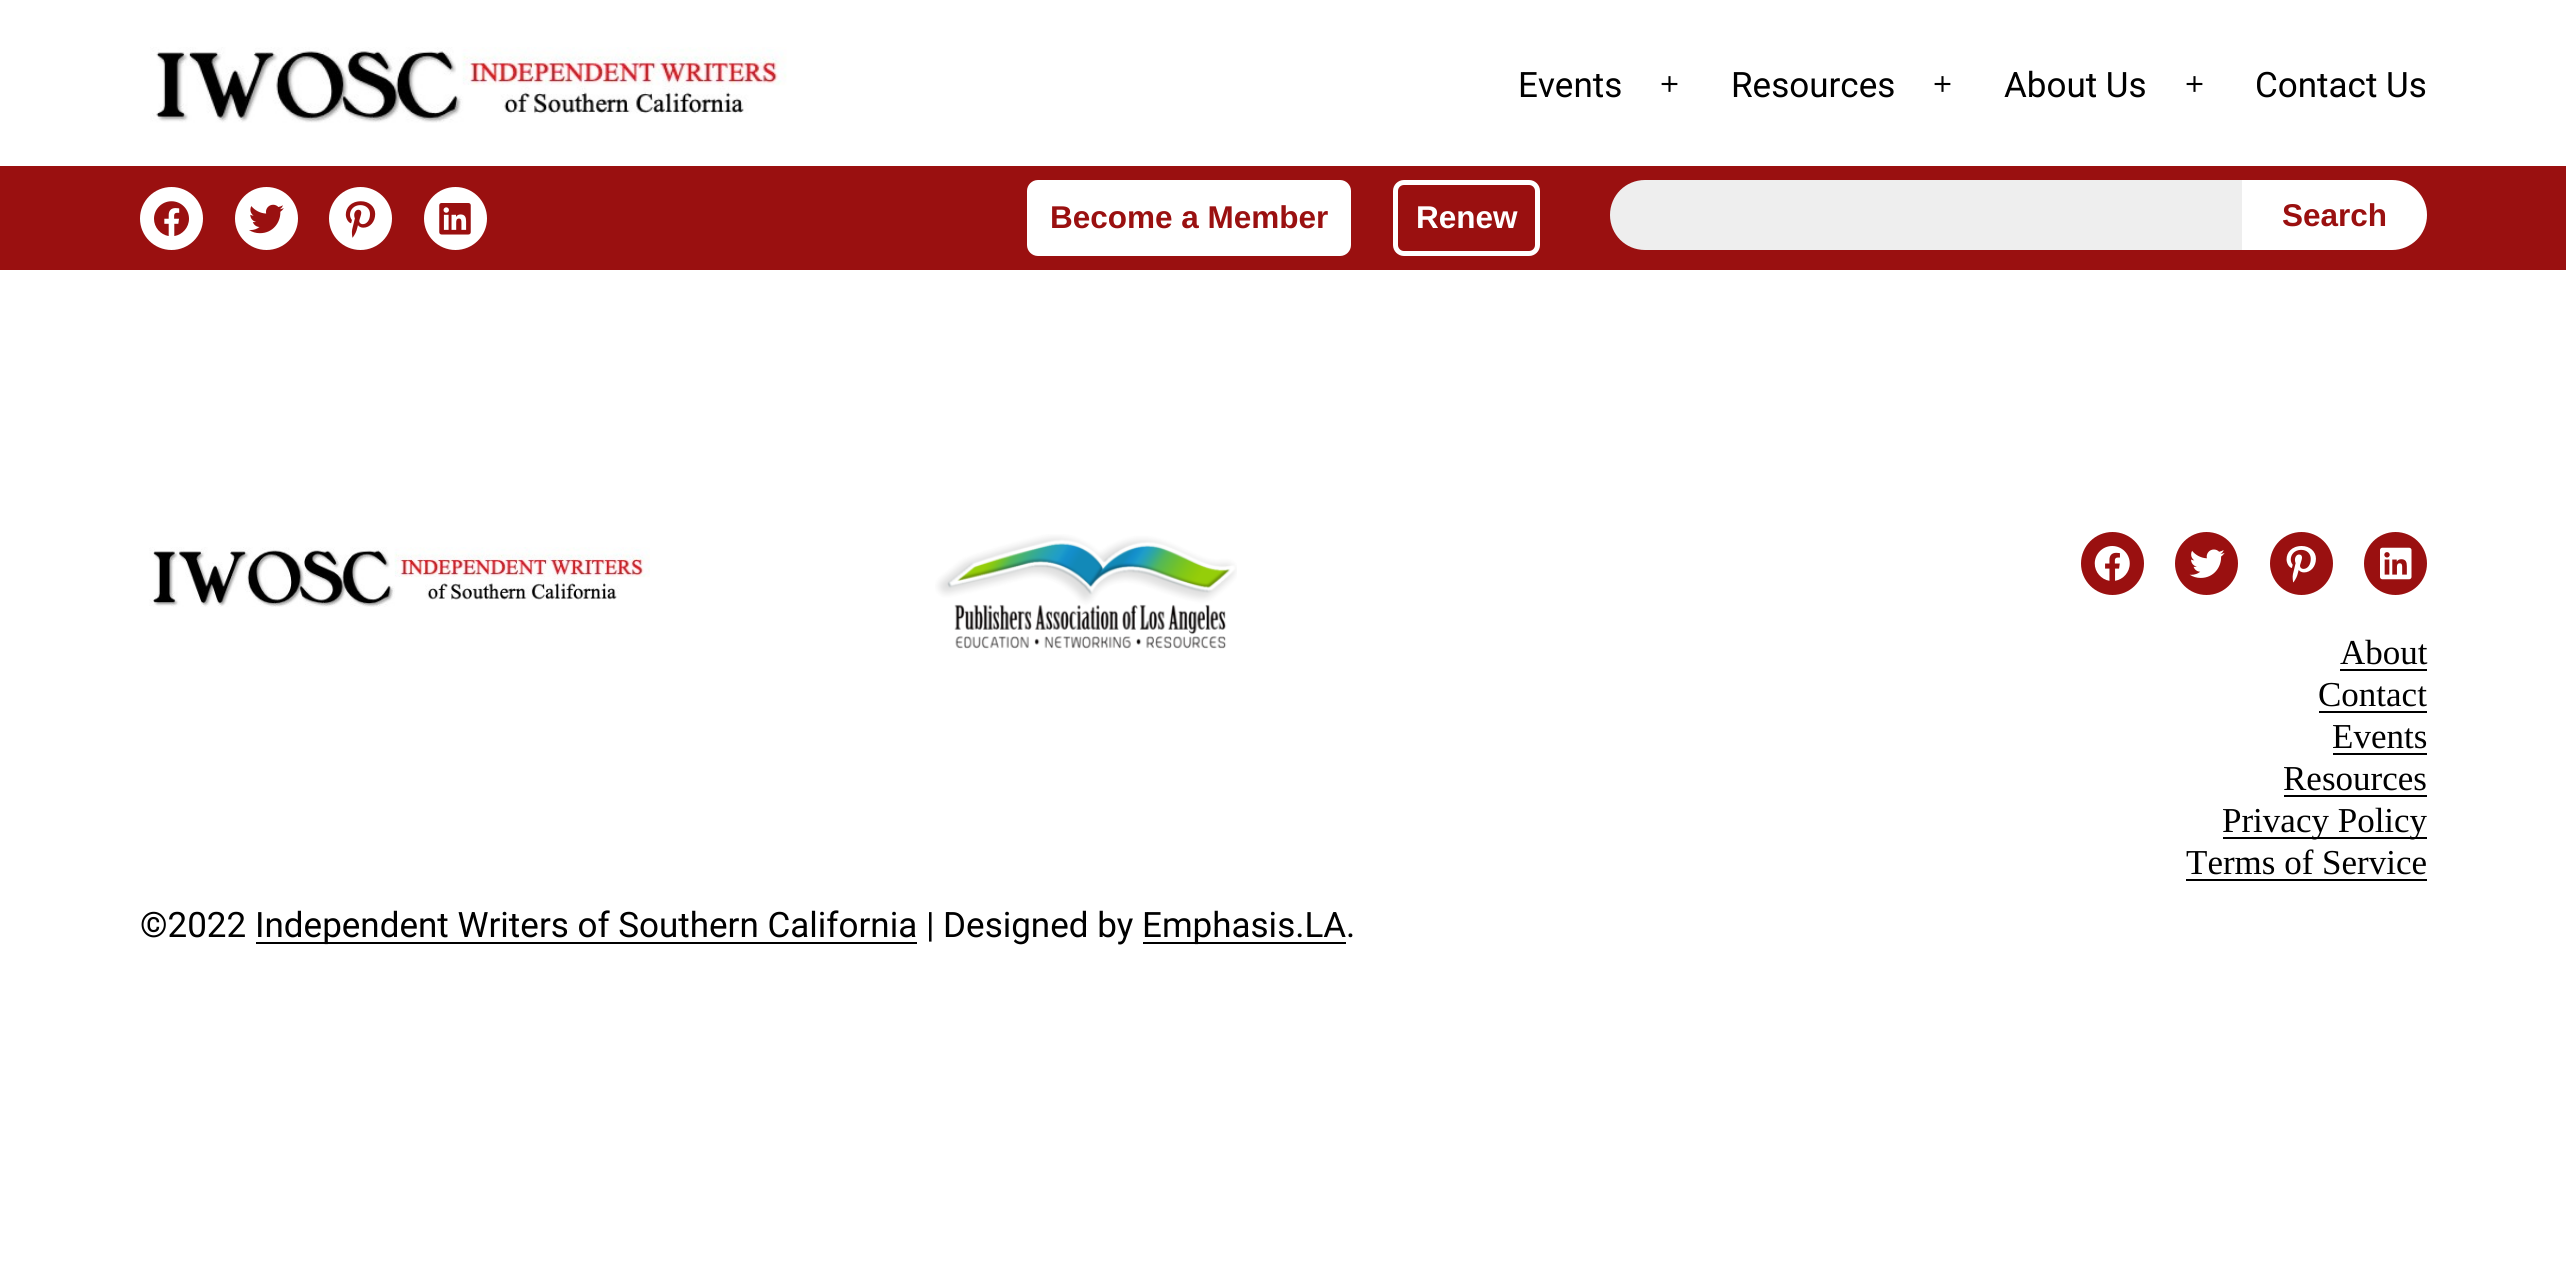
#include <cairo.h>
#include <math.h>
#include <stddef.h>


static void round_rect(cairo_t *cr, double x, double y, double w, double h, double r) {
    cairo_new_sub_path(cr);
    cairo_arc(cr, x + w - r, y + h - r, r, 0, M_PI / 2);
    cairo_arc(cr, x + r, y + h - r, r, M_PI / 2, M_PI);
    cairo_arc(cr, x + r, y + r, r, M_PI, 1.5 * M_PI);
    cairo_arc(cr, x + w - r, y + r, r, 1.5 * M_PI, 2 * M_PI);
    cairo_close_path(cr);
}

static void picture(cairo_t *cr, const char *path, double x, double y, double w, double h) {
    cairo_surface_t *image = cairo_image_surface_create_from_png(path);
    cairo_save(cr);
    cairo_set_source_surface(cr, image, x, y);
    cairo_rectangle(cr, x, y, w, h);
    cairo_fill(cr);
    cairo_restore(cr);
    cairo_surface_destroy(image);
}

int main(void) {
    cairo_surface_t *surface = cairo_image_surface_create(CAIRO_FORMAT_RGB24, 2566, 1277);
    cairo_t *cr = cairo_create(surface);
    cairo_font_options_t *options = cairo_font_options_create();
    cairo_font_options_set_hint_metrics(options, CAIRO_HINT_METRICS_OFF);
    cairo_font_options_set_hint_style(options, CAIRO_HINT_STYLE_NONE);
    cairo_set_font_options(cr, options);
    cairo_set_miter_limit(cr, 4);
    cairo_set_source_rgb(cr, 1, 1, 1);
    cairo_paint(cr);
    picture(cr, "img1.png", 150, 47, 637, 76);
    cairo_select_font_face(cr, "Roboto", CAIRO_FONT_SLANT_NORMAL, CAIRO_FONT_WEIGHT_NORMAL);
    cairo_set_font_size(cr, 35);
    cairo_set_source_rgb(cr, 0, 0, 0);
    cairo_move_to(cr, 1518, 97);
    cairo_show_text(cr, "Events");
    picture(cr, "img2.png", 1661, 76, 17, 16);
    cairo_move_to(cr, 1731, 97);
    cairo_show_text(cr, "Resources");
    picture(cr, "img2.png", 1934, 76, 17, 16);
    cairo_move_to(cr, 2004, 97);
    cairo_show_text(cr, "About Us");
    picture(cr, "img2.png", 2186, 76, 17, 16);
    cairo_move_to(cr, 2255, 97);
    cairo_show_text(cr, "Contact Us");
    cairo_set_source_rgb(cr, 0.604, 0.063, 0.063);
    cairo_rectangle(cr, 0, 166, 2566, 104);
    cairo_fill(cr);
    cairo_set_source_rgb(cr, 1, 1, 1);
    cairo_arc(cr, 171.5, 218.5, 31.5, 0, 2 * M_PI);
    cairo_fill(cr);
    picture(cr, "img3.png", 154, 201, 35, 35);
    cairo_arc(cr, 266.5, 218.5, 31.5, 0, 2 * M_PI);
    cairo_fill(cr);
    picture(cr, "img4.png", 249, 204, 35, 30);
    cairo_arc(cr, 360.5, 218.5, 31.5, 0, 2 * M_PI);
    cairo_fill(cr);
    picture(cr, "img5.png", 345, 201, 31, 37);
    cairo_arc(cr, 455.5, 218.5, 31.5, 0, 2 * M_PI);
    cairo_fill(cr);
    picture(cr, "img6.png", 439, 203, 32, 32);
    round_rect(cr, 1027, 180, 324, 76, 11);
    cairo_fill(cr);
    cairo_select_font_face(cr, "Liberation Sans", CAIRO_FONT_SLANT_NORMAL, CAIRO_FONT_WEIGHT_BOLD);
    cairo_set_font_size(cr, 31.5);
    cairo_set_source_rgb(cr, 0.604, 0.063, 0.063);
    cairo_move_to(cr, 1050, 228);
    cairo_show_text(cr, "Become a Member");
    round_rect(cr, 1395.5, 182.5, 142, 71, 8.5);
    cairo_set_source_rgb(cr, 1, 1, 1);
    cairo_set_line_width(cr, 5);
    cairo_stroke(cr);
    cairo_move_to(cr, 1416, 228);
    cairo_show_text(cr, "Renew");
    cairo_set_source_rgb(cr, 0.933, 0.933, 0.933);
    cairo_new_path(cr);
    cairo_move_to(cr, 1645, 180);
    cairo_line_to(cr, 2247, 180);
    cairo_line_to(cr, 2247, 250);
    cairo_line_to(cr, 1645, 250);
    cairo_curve_to(cr, 1625.5, 250, 1610, 234.5, 1610, 215);
    cairo_curve_to(cr, 1610, 195.5, 1625.5, 180, 1645, 180);
    cairo_close_path(cr);
    cairo_fill(cr);
    cairo_set_source_rgb(cr, 1, 1, 1);
    cairo_new_path(cr);
    cairo_move_to(cr, 2244.5, 182.5);
    cairo_line_to(cr, 2392, 182.5);
    cairo_curve_to(cr, 2410, 182.5, 2424.5, 197, 2424.5, 215);
    cairo_curve_to(cr, 2424.5, 233, 2410, 247.5, 2392, 247.5);
    cairo_line_to(cr, 2244.5, 247.5);
    cairo_close_path(cr);
    cairo_fill_preserve(cr);
    cairo_stroke(cr);
    cairo_set_source_rgb(cr, 0.604, 0.063, 0.063);
    cairo_move_to(cr, 2282, 226);
    cairo_show_text(cr, "Search");
    picture(cr, "img7.png", 149, 547, 501, 60);
    picture(cr, "img8.png", 935, 534, 302, 115);
    cairo_arc(cr, 2112.5, 563.5, 31.5, 0, 2 * M_PI);
    cairo_fill(cr);
    picture(cr, "img9.png", 2094, 546, 36, 35);
    cairo_arc(cr, 2206.5, 563.5, 31.5, 0, 2 * M_PI);
    cairo_fill(cr);
    picture(cr, "img10.png", 2189, 549, 36, 29);
    cairo_arc(cr, 2301.5, 563.5, 31.5, 0, 2 * M_PI);
    cairo_fill(cr);
    picture(cr, "img11.png", 2286, 546, 30, 37);
    cairo_arc(cr, 2395.5, 563.5, 31.5, 0, 2 * M_PI);
    cairo_fill(cr);
    picture(cr, "img12.png", 2380, 547, 32, 33);
    cairo_select_font_face(cr, "Liberation Serif", CAIRO_FONT_SLANT_NORMAL, CAIRO_FONT_WEIGHT_NORMAL);
    cairo_set_font_size(cr, 35);
    cairo_set_source_rgb(cr, 0, 0, 0);
    cairo_move_to(cr, 2340, 664);
    cairo_show_text(cr, "About");
    cairo_rectangle(cr, 2340, 669, 87, 2);
    cairo_fill(cr);
    cairo_move_to(cr, 2318, 706);
    cairo_show_text(cr, "Contact");
    cairo_rectangle(cr, 2319, 711, 108, 2);
    cairo_fill(cr);
    cairo_move_to(cr, 2332, 748);
    cairo_show_text(cr, "Events");
    cairo_rectangle(cr, 2333, 753, 94, 2);
    cairo_fill(cr);
    cairo_move_to(cr, 2283, 790);
    cairo_show_text(cr, "Resources");
    cairo_rectangle(cr, 2284, 795, 143, 2);
    cairo_fill(cr);
    cairo_rectangle(cr, 2223, 837, 204, 2);
    cairo_fill(cr);
    cairo_move_to(cr, 2222, 832);
    cairo_show_text(cr, "Privacy Policy");
    cairo_move_to(cr, 2186, 874);
    cairo_show_text(cr, "Terms of Service");
    cairo_rectangle(cr, 2186, 879, 241, 2);
    cairo_fill(cr);
    cairo_select_font_face(cr, "Roboto", CAIRO_FONT_SLANT_NORMAL, CAIRO_FONT_WEIGHT_NORMAL);
    cairo_move_to(cr, 140, 937);
    cairo_show_text(cr, "©2022");
    cairo_rectangle(cr, 256, 942, 661, 2);
    cairo_fill(cr);
    cairo_move_to(cr, 255, 937);
    cairo_show_text(cr, "Independent Writers of Southern California | Designed by");
    cairo_rectangle(cr, 1143, 942, 203, 2);
    cairo_fill(cr);
    cairo_move_to(cr, 1142, 937);
    cairo_show_text(cr, "Emphasis.LA.");
    cairo_surface_write_to_png(surface, "page.png");
    cairo_font_options_destroy(options);
    cairo_destroy(cr);
    cairo_surface_destroy(surface);
    return 0;
}
